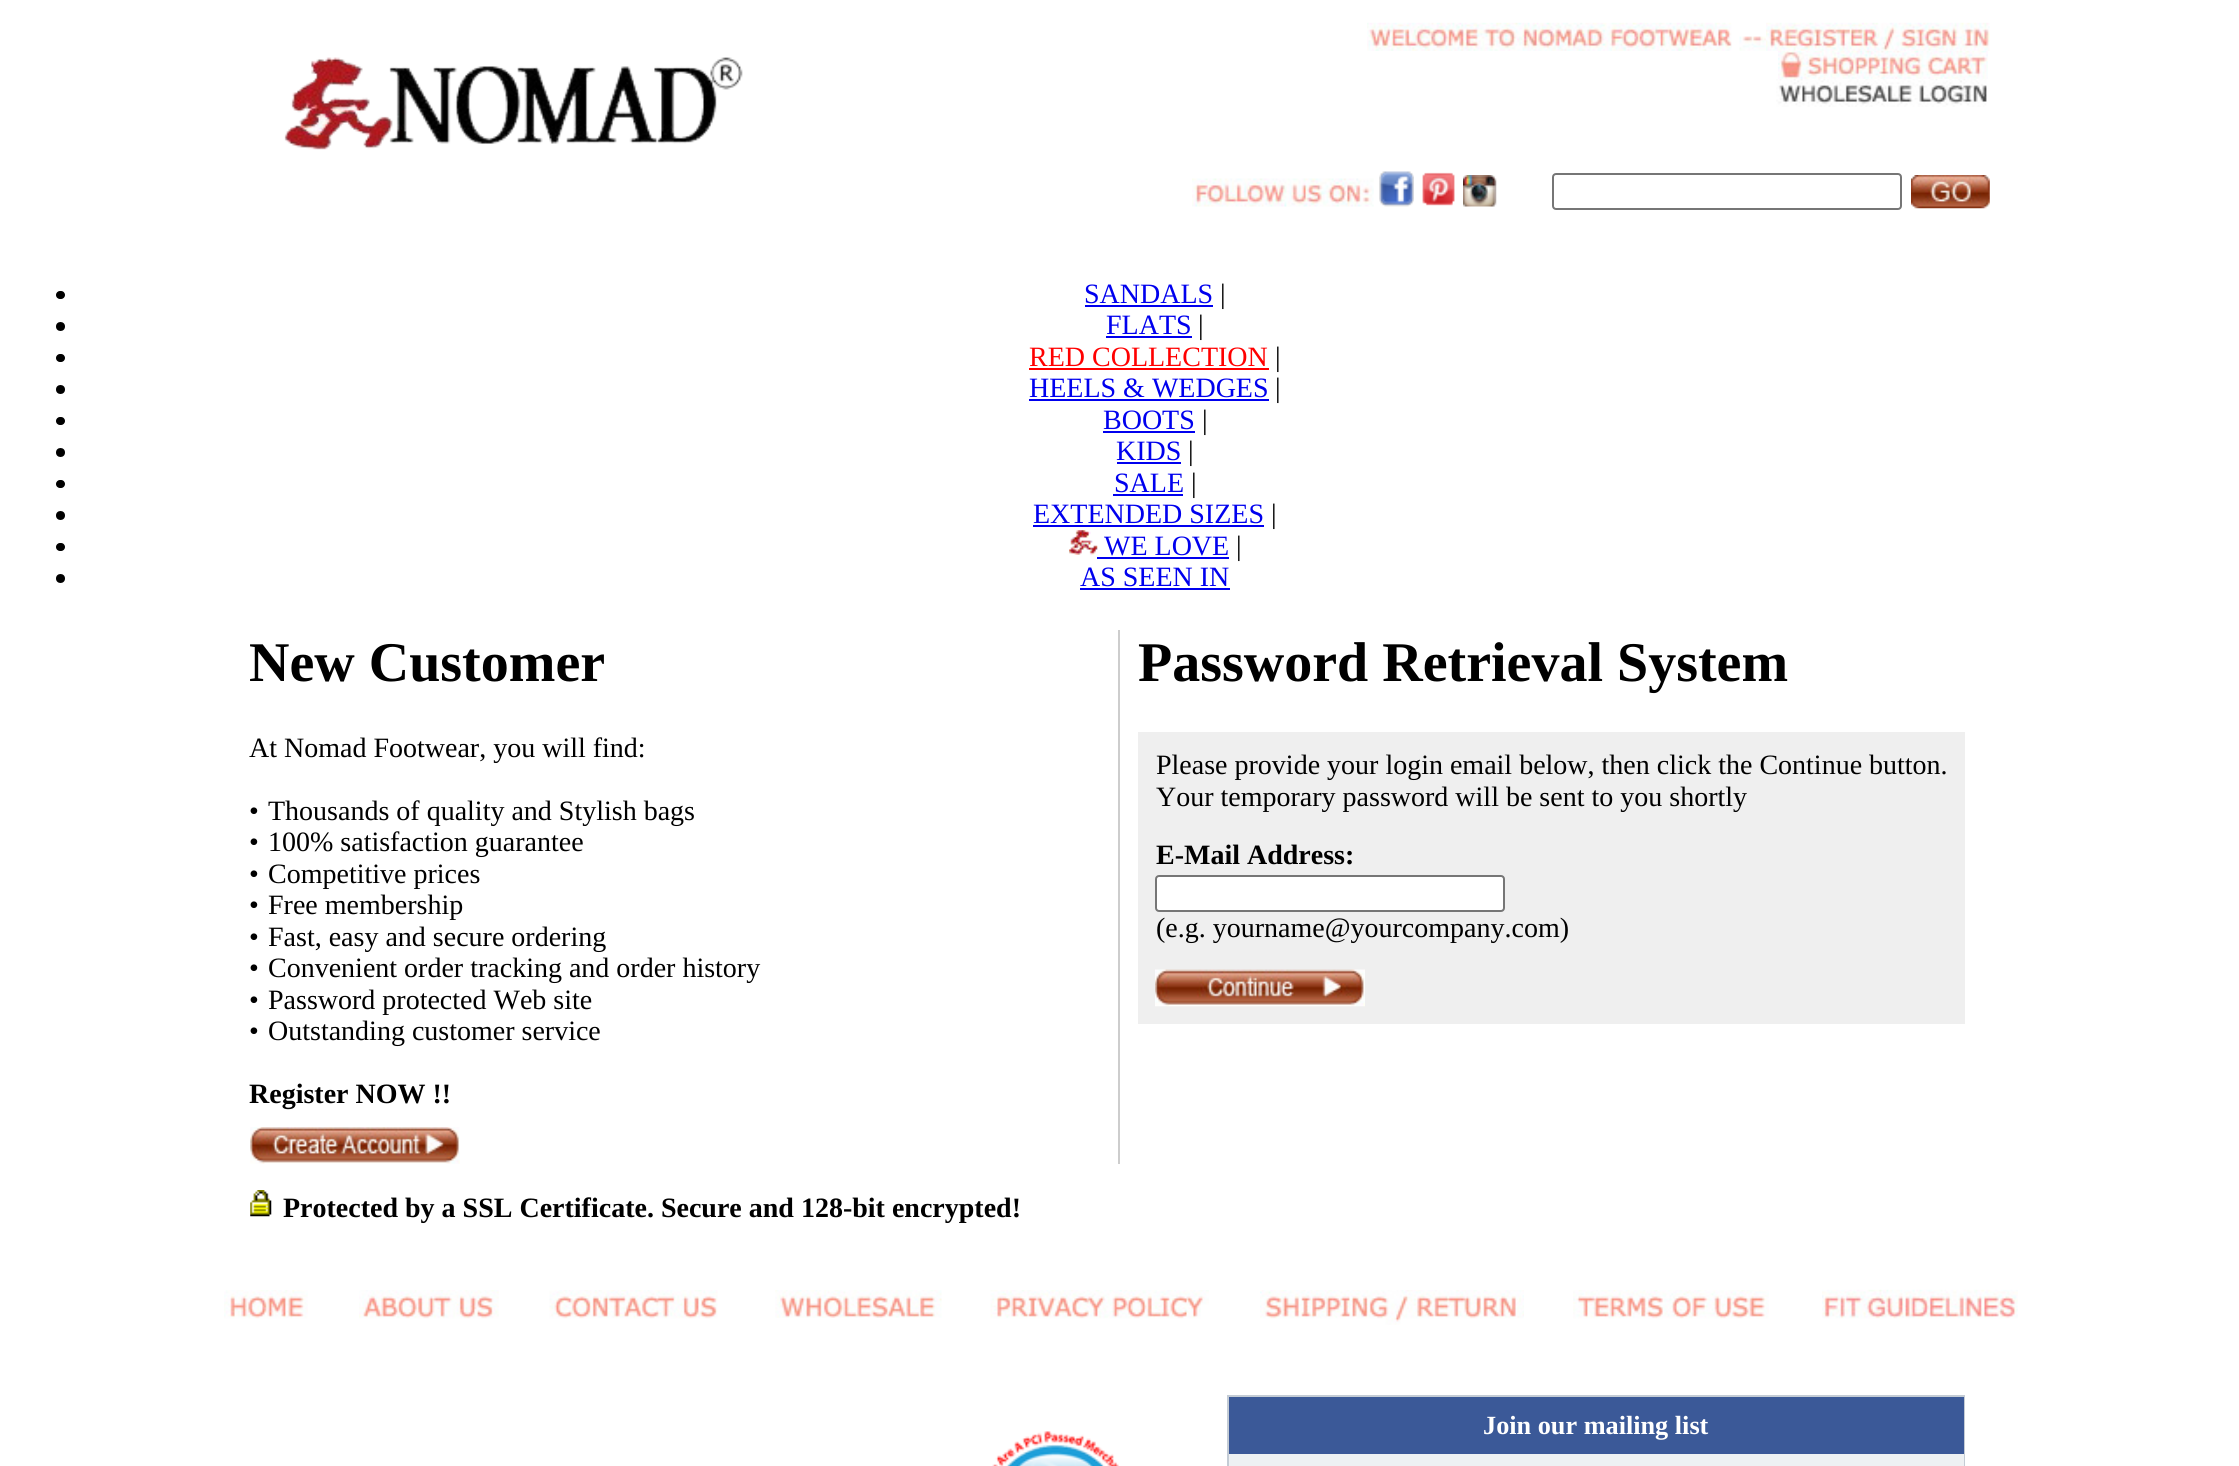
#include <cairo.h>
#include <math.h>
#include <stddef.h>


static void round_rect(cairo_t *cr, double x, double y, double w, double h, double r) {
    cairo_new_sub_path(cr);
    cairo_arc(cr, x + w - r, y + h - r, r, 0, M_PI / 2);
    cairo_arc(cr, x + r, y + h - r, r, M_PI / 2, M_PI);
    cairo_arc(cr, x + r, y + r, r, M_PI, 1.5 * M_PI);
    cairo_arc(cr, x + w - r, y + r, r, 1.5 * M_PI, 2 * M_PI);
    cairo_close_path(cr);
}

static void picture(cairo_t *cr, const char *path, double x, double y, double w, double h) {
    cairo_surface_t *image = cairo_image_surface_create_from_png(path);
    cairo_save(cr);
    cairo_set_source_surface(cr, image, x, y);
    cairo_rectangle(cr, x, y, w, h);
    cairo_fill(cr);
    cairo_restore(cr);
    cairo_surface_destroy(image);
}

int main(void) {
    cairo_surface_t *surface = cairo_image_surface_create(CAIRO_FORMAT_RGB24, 2239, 1466);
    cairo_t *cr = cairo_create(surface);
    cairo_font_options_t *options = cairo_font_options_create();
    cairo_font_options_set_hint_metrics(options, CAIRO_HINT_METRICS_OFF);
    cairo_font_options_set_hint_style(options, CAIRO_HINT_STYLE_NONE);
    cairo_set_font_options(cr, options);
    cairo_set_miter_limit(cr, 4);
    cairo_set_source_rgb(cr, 1, 1, 1);
    cairo_paint(cr);
    picture(cr, "img1.png", 284, 57, 459, 93);
    picture(cr, "img2.png", 1367, 22, 365, 29);
    picture(cr, "img3.png", 1739, 36, 27, 15);
    picture(cr, "img4.png", 1766, 22, 224, 29);
    picture(cr, "img5.png", 1778, 50, 210, 29);
    picture(cr, "img6.png", 1776, 79, 211, 28);
    picture(cr, "img7.png", 1192, 178, 182, 29);
    picture(cr, "img8.png", 1379, 171, 35, 36);
    picture(cr, "img9.png", 1422, 172, 33, 34);
    picture(cr, "img10.png", 1463, 175, 34, 32);
    round_rect(cr, 1553, 174, 348, 35, 3);
    cairo_set_source_rgb(cr, 0.463, 0.463, 0.463);
    cairo_stroke(cr);
    picture(cr, "img11.png", 1911, 175, 79, 34);
    cairo_set_source_rgb(cr, 0, 0, 0);
    round_rect(cr, 56, 291, 9, 8, 4);
    cairo_fill(cr);
    cairo_select_font_face(cr, "Liberation Serif", CAIRO_FONT_SLANT_NORMAL, CAIRO_FONT_WEIGHT_NORMAL);
    cairo_set_font_size(cr, 28);
    cairo_set_source_rgb(cr, 0, 0, 0.933);
    cairo_move_to(cr, 1084, 303);
    cairo_show_text(cr, "SANDALS");
    cairo_rectangle(cr, 1085, 305, 128, 2);
    cairo_fill(cr);
    cairo_set_source_rgb(cr, 0, 0, 0);
    cairo_move_to(cr, 1220, 303);
    cairo_show_text(cr, "|");
    cairo_new_path(cr);
    cairo_arc(cr, 60.5, 326.5, 4.5, 0, 2 * M_PI);
    cairo_fill(cr);
    cairo_set_source_rgb(cr, 0, 0, 0.933);
    cairo_move_to(cr, 1106, 334);
    cairo_show_text(cr, "FLATS");
    cairo_rectangle(cr, 1106, 336, 86, 2);
    cairo_fill(cr);
    cairo_set_source_rgb(cr, 0, 0, 0);
    cairo_move_to(cr, 1198, 334);
    cairo_show_text(cr, "|");
    round_rect(cr, 56, 354, 9, 8, 4);
    cairo_fill(cr);
    cairo_set_source_rgb(cr, 1, 0, 0);
    cairo_move_to(cr, 1029, 366);
    cairo_show_text(cr, "RED COLLECTION");
    cairo_rectangle(cr, 1029, 368, 240, 2);
    cairo_fill(cr);
    cairo_set_source_rgb(cr, 0, 0, 0);
    cairo_move_to(cr, 1275, 366);
    cairo_show_text(cr, "|");
    cairo_new_path(cr);
    cairo_arc(cr, 60.5, 389.5, 4.5, 0, 2 * M_PI);
    cairo_fill(cr);
    cairo_set_source_rgb(cr, 0, 0, 0.933);
    cairo_move_to(cr, 1029, 397);
    cairo_show_text(cr, "HEELS & WEDGES");
    cairo_rectangle(cr, 1029, 399, 240, 2);
    cairo_fill(cr);
    cairo_set_source_rgb(cr, 0, 0, 0);
    cairo_move_to(cr, 1275, 397);
    cairo_show_text(cr, "|");
    round_rect(cr, 56, 417, 9, 8, 4);
    cairo_fill(cr);
    cairo_set_source_rgb(cr, 0, 0, 0.933);
    cairo_move_to(cr, 1103, 429);
    cairo_show_text(cr, "BOOTS");
    cairo_rectangle(cr, 1103, 431, 92, 2);
    cairo_fill(cr);
    cairo_set_source_rgb(cr, 0, 0, 0);
    cairo_move_to(cr, 1202, 429);
    cairo_show_text(cr, "|");
    cairo_new_path(cr);
    cairo_arc(cr, 60.5, 452.5, 4.5, 0, 2 * M_PI);
    cairo_fill(cr);
    cairo_set_source_rgb(cr, 0, 0, 0.933);
    cairo_move_to(cr, 1116, 460);
    cairo_show_text(cr, "KIDS");
    cairo_rectangle(cr, 1117, 462, 64, 2);
    cairo_fill(cr);
    cairo_set_source_rgb(cr, 0, 0, 0);
    cairo_move_to(cr, 1188, 460);
    cairo_show_text(cr, "|");
    round_rect(cr, 56, 480, 9, 8, 4);
    cairo_fill(cr);
    cairo_set_source_rgb(cr, 0, 0, 0.933);
    cairo_move_to(cr, 1114, 492);
    cairo_show_text(cr, "SALE");
    cairo_rectangle(cr, 1113, 494, 70, 2);
    cairo_fill(cr);
    cairo_set_source_rgb(cr, 0, 0, 0);
    cairo_move_to(cr, 1191, 492);
    cairo_show_text(cr, "|");
    cairo_new_path(cr);
    cairo_arc(cr, 60.5, 515.5, 4.5, 0, 2 * M_PI);
    cairo_fill(cr);
    cairo_set_source_rgb(cr, 0, 0, 0.933);
    cairo_move_to(cr, 1033, 523);
    cairo_show_text(cr, "EXTENDED SIZES");
    cairo_rectangle(cr, 1033, 525, 231, 2);
    cairo_fill(cr);
    cairo_set_source_rgb(cr, 0, 0, 0);
    cairo_move_to(cr, 1271, 523);
    cairo_show_text(cr, "|");
    round_rect(cr, 56, 543, 9, 8, 4);
    cairo_fill(cr);
    picture(cr, "img12.png", 1069, 530, 29, 25);
    cairo_set_source_rgb(cr, 0, 0, 0.933);
    cairo_move_to(cr, 1104, 555);
    cairo_show_text(cr, "WE LOVE");
    cairo_rectangle(cr, 1097, 557, 132, 2);
    cairo_fill(cr);
    cairo_set_source_rgb(cr, 0, 0, 0);
    cairo_move_to(cr, 1236, 555);
    cairo_show_text(cr, "|");
    cairo_new_path(cr);
    cairo_arc(cr, 60.5, 578.5, 4.5, 0, 2 * M_PI);
    cairo_fill(cr);
    cairo_set_source_rgb(cr, 0, 0, 0.933);
    cairo_move_to(cr, 1080, 586);
    cairo_show_text(cr, "AS SEEN IN");
    cairo_rectangle(cr, 1080, 588, 150, 2);
    cairo_fill(cr);
    cairo_select_font_face(cr, "Liberation Serif", CAIRO_FONT_SLANT_NORMAL, CAIRO_FONT_WEIGHT_BOLD);
    cairo_set_font_size(cr, 56);
    cairo_set_source_rgb(cr, 0, 0, 0);
    cairo_move_to(cr, 249, 681);
    cairo_show_text(cr, "New Customer");
    cairo_select_font_face(cr, "Liberation Serif", CAIRO_FONT_SLANT_NORMAL, CAIRO_FONT_WEIGHT_NORMAL);
    cairo_set_font_size(cr, 28);
    cairo_move_to(cr, 249, 757);
    cairo_show_text(cr, "At Nomad Footwear, you will find:");
    cairo_move_to(cr, 249, 820);
    cairo_show_text(cr, "•");
    cairo_move_to(cr, 268, 820);
    cairo_show_text(cr, "Thousands of quality and Stylish bags");
    cairo_move_to(cr, 249, 851);
    cairo_show_text(cr, "•");
    cairo_move_to(cr, 268, 851);
    cairo_show_text(cr, "100% satisfaction guarantee");
    cairo_move_to(cr, 249, 883);
    cairo_show_text(cr, "•");
    cairo_move_to(cr, 268, 883);
    cairo_show_text(cr, "Competitive prices");
    cairo_move_to(cr, 249, 914);
    cairo_show_text(cr, "•");
    cairo_move_to(cr, 268, 914);
    cairo_show_text(cr, "Free membership");
    cairo_move_to(cr, 249, 946);
    cairo_show_text(cr, "•");
    cairo_move_to(cr, 268, 946);
    cairo_show_text(cr, "Fast, easy and secure ordering");
    cairo_move_to(cr, 249, 977);
    cairo_show_text(cr, "•");
    cairo_move_to(cr, 268, 977);
    cairo_show_text(cr, "Convenient order tracking and order history");
    cairo_move_to(cr, 249, 1009);
    cairo_show_text(cr, "•");
    cairo_move_to(cr, 268, 1009);
    cairo_show_text(cr, "Password protected Web site");
    cairo_move_to(cr, 249, 1040);
    cairo_show_text(cr, "•");
    cairo_move_to(cr, 268, 1040);
    cairo_show_text(cr, "Outstanding customer service");
    cairo_select_font_face(cr, "Liberation Serif", CAIRO_FONT_SLANT_NORMAL, CAIRO_FONT_WEIGHT_BOLD);
    cairo_move_to(cr, 249, 1103);
    cairo_show_text(cr, "Register NOW !!");
    picture(cr, "img13.png", 250, 1127, 210, 37);
    cairo_set_source_rgb(cr, 0.804, 0.804, 0.804);
    cairo_rectangle(cr, 1118, 630, 2, 534);
    cairo_fill(cr);
    cairo_set_font_size(cr, 56);
    cairo_set_source_rgb(cr, 0, 0, 0);
    cairo_move_to(cr, 1138, 681);
    cairo_show_text(cr, "Password Retrieval System");
    cairo_set_source_rgb(cr, 0.937, 0.937, 0.937);
    cairo_rectangle(cr, 1138, 732, 827, 292);
    cairo_fill(cr);
    cairo_select_font_face(cr, "Liberation Serif", CAIRO_FONT_SLANT_NORMAL, CAIRO_FONT_WEIGHT_NORMAL);
    cairo_set_font_size(cr, 28);
    cairo_set_source_rgb(cr, 0, 0, 0);
    cairo_move_to(cr, 1156, 774);
    cairo_show_text(cr, "Please provide your login email below, then click the Continue button.");
    cairo_move_to(cr, 1156, 806);
    cairo_show_text(cr, "Your temporary password will be sent to you shortly");
    cairo_select_font_face(cr, "Liberation Serif", CAIRO_FONT_SLANT_NORMAL, CAIRO_FONT_WEIGHT_BOLD);
    cairo_move_to(cr, 1156, 864);
    cairo_show_text(cr, "E-Mail Address:");
    cairo_set_source_rgb(cr, 1, 1, 1);
    round_rect(cr, 1156, 876, 348, 35, 3);
    cairo_fill_preserve(cr);
    cairo_set_source_rgb(cr, 0.463, 0.463, 0.463);
    cairo_stroke(cr);
    cairo_select_font_face(cr, "Liberation Serif", CAIRO_FONT_SLANT_NORMAL, CAIRO_FONT_WEIGHT_NORMAL);
    cairo_set_source_rgb(cr, 0, 0, 0);
    cairo_move_to(cr, 1156, 937);
    cairo_show_text(cr, "(e.g. yourname@yourcompany.com)");
    picture(cr, "img14.png", 1155, 969, 210, 38);
    picture(cr, "img15.png", 250, 1190, 22, 27);
    cairo_select_font_face(cr, "Liberation Serif", CAIRO_FONT_SLANT_NORMAL, CAIRO_FONT_WEIGHT_BOLD);
    cairo_move_to(cr, 283, 1217);
    cairo_show_text(cr, "Protected by a SSL Certificate. Secure and 128-bit encrypted!");
    picture(cr, "img16.png", 224, 1290, 84, 29);
    picture(cr, "img17.png", 359, 1290, 140, 29);
    picture(cr, "img18.png", 549, 1290, 169, 29);
    picture(cr, "img19.png", 775, 1290, 167, 28);
    picture(cr, "img20.png", 990, 1290, 219, 29);
    picture(cr, "img21.png", 1260, 1290, 264, 35);
    picture(cr, "img22.png", 1573, 1290, 196, 29);
    picture(cr, "img23.png", 1822, 1289, 196, 30);
    cairo_rectangle(cr, 1228, 1396, 736, 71);
    cairo_set_source_rgb(cr, 0.769, 0.8, 0.835);
    cairo_stroke(cr);
    cairo_set_source_rgb(cr, 0.231, 0.349, 0.596);
    cairo_rectangle(cr, 1229, 1397, 735, 57);
    cairo_fill(cr);
    cairo_set_font_size(cr, 26.25);
    cairo_set_source_rgb(cr, 1, 1, 1);
    cairo_move_to(cr, 1483, 1434);
    cairo_show_text(cr, "Join our mailing list");
    cairo_set_source_rgb(cr, 0.933, 0.945, 0.953);
    cairo_rectangle(cr, 1229, 1454, 735, 12);
    cairo_fill(cr);
    picture(cr, "img24.png", 992, 1431, 127, 35);
    cairo_surface_write_to_png(surface, "page.png");
    cairo_font_options_destroy(options);
    cairo_destroy(cr);
    cairo_surface_destroy(surface);
    return 0;
}
